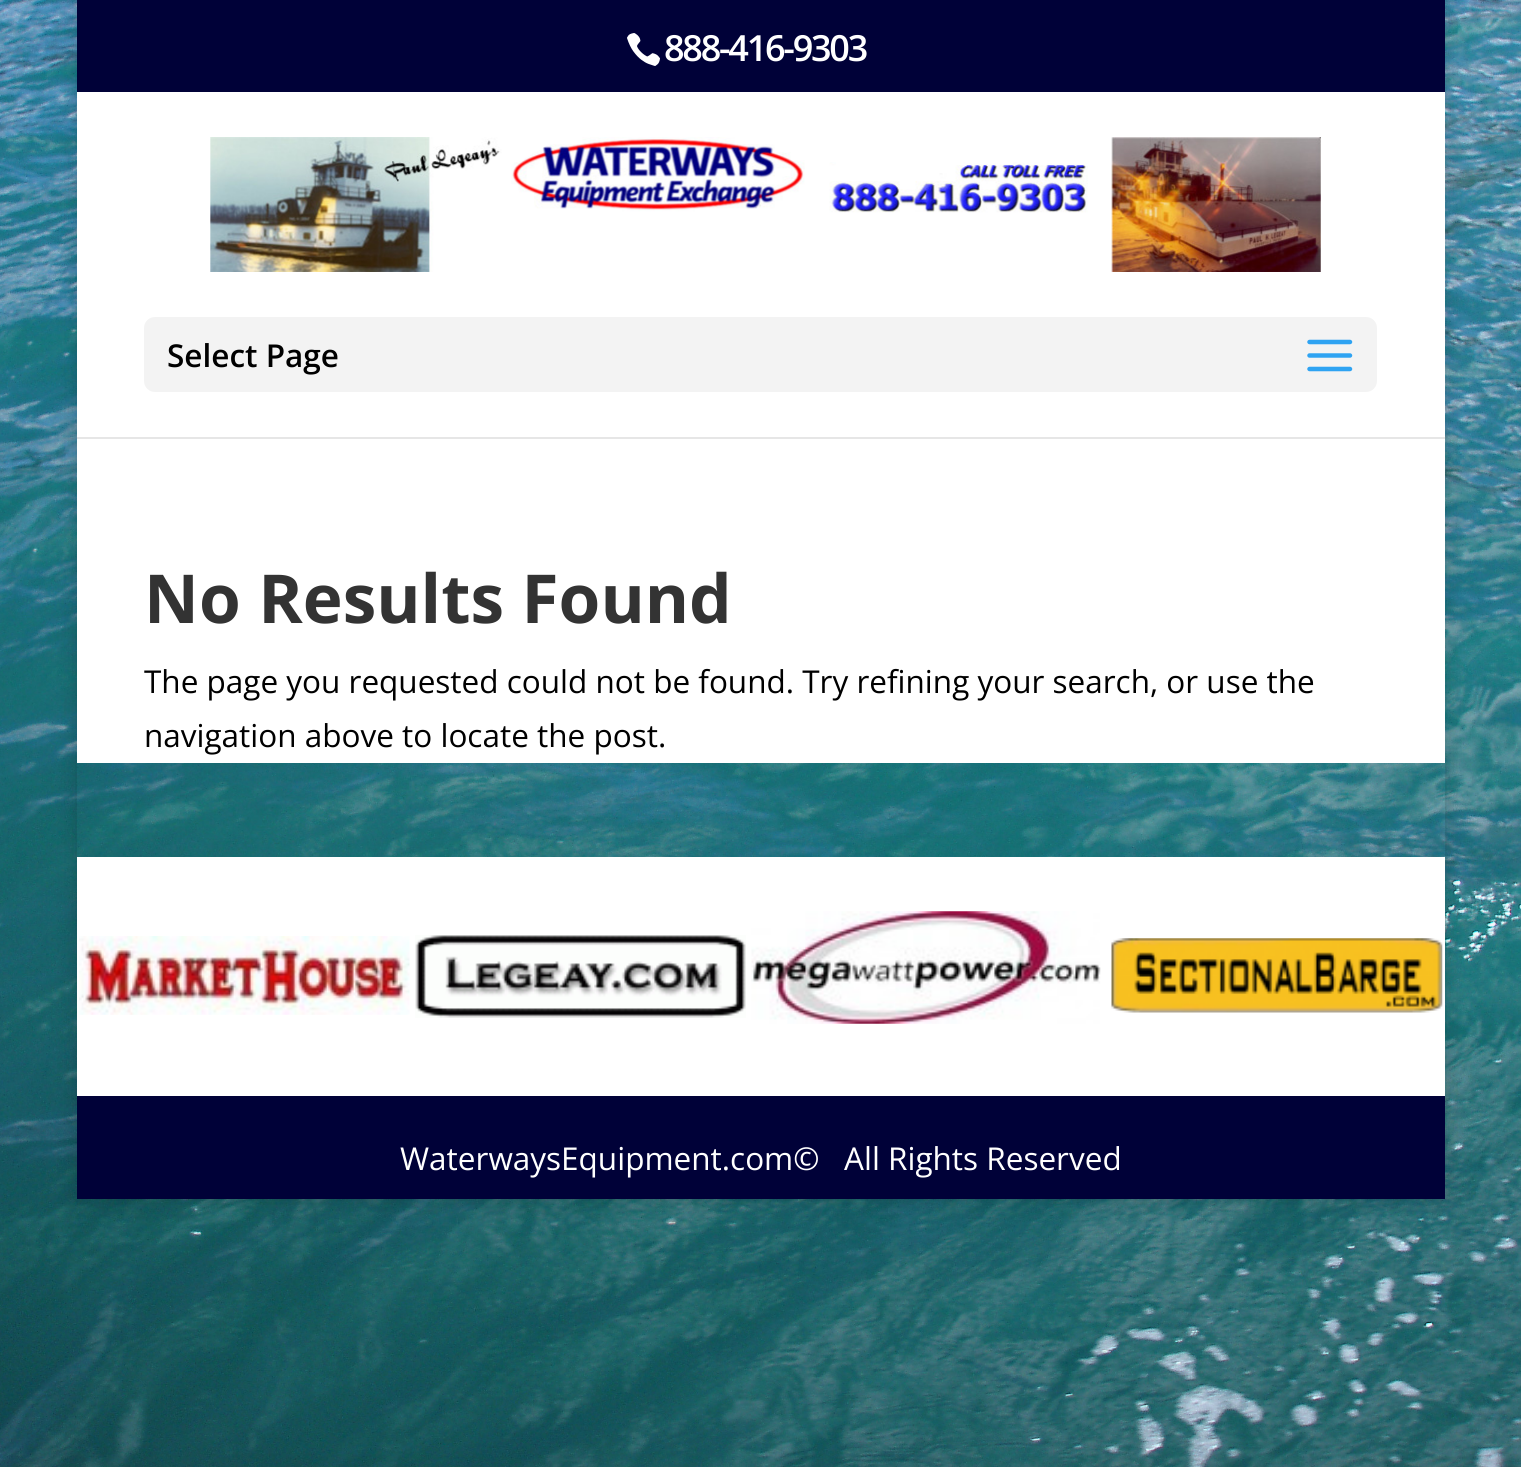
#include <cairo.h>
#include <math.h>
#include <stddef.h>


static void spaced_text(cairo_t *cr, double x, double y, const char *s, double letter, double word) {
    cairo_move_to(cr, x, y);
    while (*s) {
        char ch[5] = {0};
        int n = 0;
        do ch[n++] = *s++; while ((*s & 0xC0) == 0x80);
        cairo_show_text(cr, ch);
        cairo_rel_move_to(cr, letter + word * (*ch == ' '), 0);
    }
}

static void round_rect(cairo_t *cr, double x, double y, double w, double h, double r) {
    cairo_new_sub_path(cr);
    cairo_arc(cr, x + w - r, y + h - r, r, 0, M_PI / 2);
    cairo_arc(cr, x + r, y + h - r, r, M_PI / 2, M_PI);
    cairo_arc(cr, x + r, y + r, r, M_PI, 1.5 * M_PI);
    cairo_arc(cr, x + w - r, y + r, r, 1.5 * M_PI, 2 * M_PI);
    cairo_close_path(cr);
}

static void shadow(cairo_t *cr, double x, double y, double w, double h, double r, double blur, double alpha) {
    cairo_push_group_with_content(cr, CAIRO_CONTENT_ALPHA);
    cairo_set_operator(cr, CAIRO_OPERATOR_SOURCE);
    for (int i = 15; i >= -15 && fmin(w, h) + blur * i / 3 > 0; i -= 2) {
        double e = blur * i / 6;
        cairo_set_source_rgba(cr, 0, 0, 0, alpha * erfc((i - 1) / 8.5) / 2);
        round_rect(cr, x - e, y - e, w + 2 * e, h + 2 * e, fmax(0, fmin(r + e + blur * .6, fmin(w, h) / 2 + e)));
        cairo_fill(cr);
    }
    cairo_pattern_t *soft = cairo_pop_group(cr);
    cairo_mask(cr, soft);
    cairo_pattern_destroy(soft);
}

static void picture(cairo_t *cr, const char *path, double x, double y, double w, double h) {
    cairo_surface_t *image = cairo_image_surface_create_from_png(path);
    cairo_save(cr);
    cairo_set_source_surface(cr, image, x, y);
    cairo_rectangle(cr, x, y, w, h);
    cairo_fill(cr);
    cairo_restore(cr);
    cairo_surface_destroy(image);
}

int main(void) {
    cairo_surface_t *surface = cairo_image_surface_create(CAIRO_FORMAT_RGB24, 1521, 1467);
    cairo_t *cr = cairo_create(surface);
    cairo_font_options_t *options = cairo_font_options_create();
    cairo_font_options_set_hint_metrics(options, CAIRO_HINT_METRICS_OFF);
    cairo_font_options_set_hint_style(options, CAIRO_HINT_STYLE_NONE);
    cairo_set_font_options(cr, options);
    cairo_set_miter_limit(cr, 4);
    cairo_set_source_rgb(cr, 1, 1, 1);
    cairo_paint(cr);
    picture(cr, "img1.png", 0, 0, 1521, 1467);
    cairo_save(cr);
    cairo_set_fill_rule(cr, CAIRO_FILL_RULE_EVEN_ODD);
    cairo_new_path(cr);
    cairo_move_to(cr, 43, 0);
    cairo_line_to(cr, 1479, 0);
    cairo_line_to(cr, 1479, 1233);
    cairo_line_to(cr, 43, 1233);
    cairo_close_path(cr);
    cairo_move_to(cr, 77, 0);
    cairo_line_to(cr, 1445, 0);
    cairo_line_to(cr, 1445, 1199);
    cairo_line_to(cr, 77, 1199);
    cairo_close_path(cr);
    cairo_clip(cr);
    cairo_set_source_rgb(cr, 0, 0, 0);
    shadow(cr, 77, 0, 1368, 1199, 0, 11, 0.2);
    cairo_restore(cr);
    cairo_set_source_rgb(cr, 0, 0.004, 0.22);
    cairo_rectangle(cr, 77, 0, 1368, 92);
    cairo_fill(cr);
    picture(cr, "img2.png", 627, 33, 33, 33);
    cairo_select_font_face(cr, "Open Sans SemiBold", CAIRO_FONT_SLANT_NORMAL, CAIRO_FONT_WEIGHT_NORMAL);
    cairo_set_font_size(cr, 36);
    cairo_set_source_rgb(cr, 1, 1, 1);
    spaced_text(cr, 664, 61, "888-416-9303", -2.25, 0);
    cairo_rectangle(cr, 77, 437, 1368, 326);
    cairo_fill(cr);
    cairo_set_source_rgba(cr, 0, 0, 0, 0.1);
    cairo_new_path(cr);
    cairo_move_to(cr, 77, 436);
    cairo_line_to(cr, 77, 439);
    cairo_line_to(cr, 1445, 439);
    cairo_line_to(cr, 1445, 95);
    cairo_line_to(cr, 1444, 95);
    cairo_line_to(cr, 1444, 436);
    cairo_close_path(cr);
    cairo_fill(cr);
    cairo_set_source_rgb(cr, 1, 1, 1);
    cairo_rectangle(cr, 77, 92, 1368, 345);
    cairo_fill(cr);
    picture(cr, "img3.png", 210, 137, 1111, 135);
    cairo_set_source_rgb(cr, 0.953, 0.953, 0.953);
    round_rect(cr, 144, 317, 1233, 75, 11);
    cairo_fill(cr);
    cairo_set_font_size(cr, 31.5);
    cairo_set_source_rgb(cr, 0, 0, 0);
    cairo_move_to(cr, 167, 367);
    cairo_show_text(cr, "Select Page");
    picture(cr, "img4.png", 1307, 339, 46, 33);
    cairo_select_font_face(cr, "Open Sans", CAIRO_FONT_SLANT_NORMAL, CAIRO_FONT_WEIGHT_BOLD);
    cairo_set_font_size(cr, 67.5);
    cairo_set_source_rgb(cr, 0.2, 0.2, 0.2);
    cairo_move_to(cr, 144, 623);
    cairo_show_text(cr, "No Results Found");
    cairo_select_font_face(cr, "Open Sans", CAIRO_FONT_SLANT_NORMAL, CAIRO_FONT_WEIGHT_NORMAL);
    cairo_set_font_size(cr, 31.5);
    cairo_set_source_rgb(cr, 0, 0, 0);
    cairo_move_to(cr, 144, 693);
    cairo_show_text(cr, "The page you requested could not be found. Try refining your search, or use the");
    cairo_move_to(cr, 144, 747);
    cairo_show_text(cr, "navigation above to locate the post.");
    cairo_set_source_rgb(cr, 1, 1, 1);
    cairo_rectangle(cr, 77, 857, 1368, 239);
    cairo_fill(cr);
    picture(cr, "img5.png", 79, 936, 331, 79);
    picture(cr, "img6.png", 415, 935, 331, 83);
    picture(cr, "img7.png", 751, 911, 350, 113);
    picture(cr, "img8.png", 1111, 938, 332, 75);
    cairo_set_source_rgb(cr, 0, 0.004, 0.22);
    cairo_rectangle(cr, 77, 1096, 1368, 103);
    cairo_fill(cr);
    cairo_set_source_rgb(cr, 1, 1, 1);
    cairo_move_to(cr, 400, 1170);
    cairo_show_text(cr, "WaterwaysEquipment.com©   All Rights Reserved");
    cairo_surface_write_to_png(surface, "page.png");
    cairo_font_options_destroy(options);
    cairo_destroy(cr);
    cairo_surface_destroy(surface);
    return 0;
}
